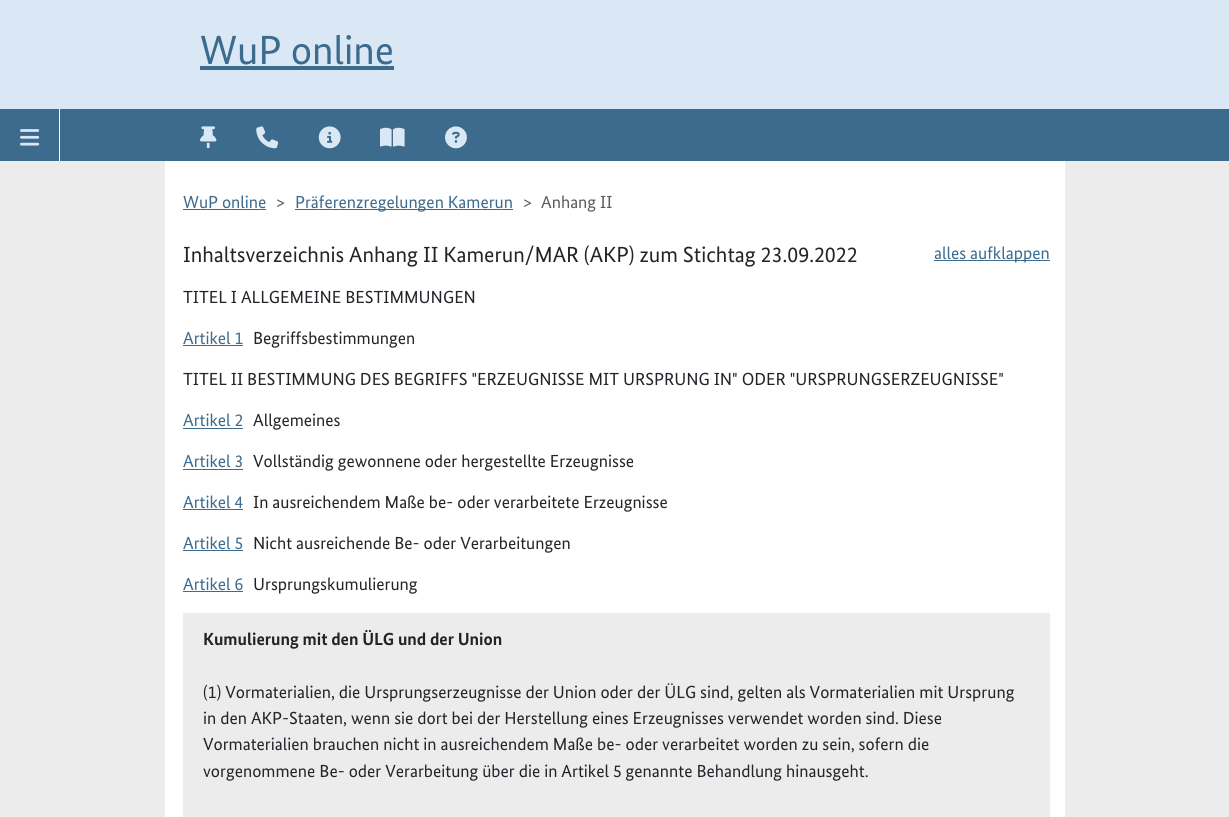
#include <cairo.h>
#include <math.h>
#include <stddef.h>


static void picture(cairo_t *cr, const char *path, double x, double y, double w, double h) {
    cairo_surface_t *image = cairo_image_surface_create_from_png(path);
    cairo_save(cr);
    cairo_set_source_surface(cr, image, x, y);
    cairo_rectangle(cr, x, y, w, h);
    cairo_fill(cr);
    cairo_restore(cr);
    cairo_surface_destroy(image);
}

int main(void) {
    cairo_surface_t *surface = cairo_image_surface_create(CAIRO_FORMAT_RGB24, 1229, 817);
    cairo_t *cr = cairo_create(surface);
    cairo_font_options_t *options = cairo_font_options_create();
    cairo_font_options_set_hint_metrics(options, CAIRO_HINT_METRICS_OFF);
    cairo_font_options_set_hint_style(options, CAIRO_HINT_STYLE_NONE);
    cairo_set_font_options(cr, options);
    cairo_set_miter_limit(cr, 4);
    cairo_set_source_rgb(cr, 0.855, 0.91, 0.961);
    cairo_paint(cr);
    cairo_select_font_face(cr, "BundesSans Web", CAIRO_FONT_SLANT_NORMAL, CAIRO_FONT_WEIGHT_NORMAL);
    cairo_set_font_size(cr, 40.75);
    cairo_set_source_rgb(cr, 0.239, 0.42, 0.553);
    cairo_move_to(cr, 200, 64);
    cairo_show_text(cr, "WuP online");
    cairo_rectangle(cr, 200, 66, 194, 4);
    cairo_fill(cr);
    cairo_rectangle(cr, 0, 109, 1229, 52);
    cairo_fill(cr);
    cairo_set_source_rgb(cr, 1, 1, 1);
    cairo_rectangle(cr, 59, 109, 1, 52);
    cairo_fill(cr);
    picture(cr, "img1.png", 20, 129, 20, 17);
    picture(cr, "img2.png", 200, 126, 17, 23);
    picture(cr, "img3.png", 256, 126, 23, 23);
    picture(cr, "img4.png", 318, 126, 23, 23);
    picture(cr, "img5.png", 380, 127, 25, 20);
    picture(cr, "img6.png", 445, 126, 22, 23);
    cairo_set_source_rgb(cr, 0.922, 0.922, 0.922);
    cairo_rectangle(cr, 0, 161, 1229, 656);
    cairo_fill(cr);
    cairo_set_source_rgb(cr, 1, 1, 1);
    cairo_rectangle(cr, 165, 161, 900, 656);
    cairo_fill(cr);
    cairo_set_font_size(cr, 17.5);
    cairo_set_source_rgb(cr, 0.239, 0.42, 0.553);
    cairo_move_to(cr, 183, 208);
    cairo_show_text(cr, "WuP online");
    cairo_rectangle(cr, 183, 209, 83, 1);
    cairo_fill(cr);
    cairo_set_source_rgb(cr, 0.349, 0.361, 0.373);
    cairo_move_to(cr, 276, 208);
    cairo_show_text(cr, ">");
    cairo_set_source_rgb(cr, 0.239, 0.42, 0.553);
    cairo_rectangle(cr, 295, 209, 218, 1);
    cairo_fill(cr);
    cairo_move_to(cr, 295, 208);
    cairo_show_text(cr, "Präferenzregelungen Kamerun");
    cairo_set_source_rgb(cr, 0.349, 0.361, 0.373);
    cairo_move_to(cr, 523, 208);
    cairo_show_text(cr, ">");
    cairo_move_to(cr, 541, 208);
    cairo_show_text(cr, "Anhang II");
    cairo_set_font_size(cr, 21.9);
    cairo_set_source_rgb(cr, 0.129, 0.145, 0.161);
    cairo_move_to(cr, 183, 262);
    cairo_show_text(cr, "Inhaltsverzeichnis Anhang II Kamerun/MAR (AKP) zum Stichtag 23.09.2022");
    cairo_set_source_rgb(cr, 0.239, 0.42, 0.553);
    cairo_rectangle(cr, 934, 260, 116, 1);
    cairo_fill(cr);
    cairo_set_font_size(cr, 17.5);
    cairo_move_to(cr, 934, 259);
    cairo_show_text(cr, "alles aufklappen");
    cairo_set_source_rgb(cr, 0.129, 0.145, 0.161);
    cairo_move_to(cr, 183, 303);
    cairo_show_text(cr, "TITEL I ALLGEMEINE BESTIMMUNGEN");
    cairo_set_source_rgb(cr, 0.239, 0.42, 0.553);
    cairo_move_to(cr, 183, 344);
    cairo_show_text(cr, "Artikel 1");
    cairo_rectangle(cr, 183, 345, 60, 1);
    cairo_fill(cr);
    cairo_set_source_rgb(cr, 0.129, 0.145, 0.161);
    cairo_move_to(cr, 253, 344);
    cairo_show_text(cr, "Begriffsbestimmungen");
    cairo_move_to(cr, 183, 385);
    cairo_show_text(cr, "TITEL II BESTIMMUNG DES BEGRIFFS \"ERZEUGNISSE MIT URSPRUNG IN\" ODER \"URSPRUNGSERZEUGNISSE\"");
    cairo_set_source_rgb(cr, 0.239, 0.42, 0.553);
    cairo_move_to(cr, 183, 426);
    cairo_show_text(cr, "Artikel 2");
    cairo_rectangle(cr, 183, 428, 60, 1);
    cairo_fill(cr);
    cairo_set_source_rgb(cr, 0.129, 0.145, 0.161);
    cairo_move_to(cr, 253, 426);
    cairo_show_text(cr, "Allgemeines");
    cairo_set_source_rgb(cr, 0.239, 0.42, 0.553);
    cairo_move_to(cr, 183, 467);
    cairo_show_text(cr, "Artikel 3");
    cairo_rectangle(cr, 183, 469, 60, 1);
    cairo_fill(cr);
    cairo_set_source_rgb(cr, 0.129, 0.145, 0.161);
    cairo_move_to(cr, 253, 467);
    cairo_show_text(cr, "Vollständig gewonnene oder hergestellte Erzeugnisse");
    cairo_set_source_rgb(cr, 0.239, 0.42, 0.553);
    cairo_move_to(cr, 183, 508);
    cairo_show_text(cr, "Artikel 4");
    cairo_rectangle(cr, 183, 509, 60, 1);
    cairo_fill(cr);
    cairo_set_source_rgb(cr, 0.129, 0.145, 0.161);
    cairo_move_to(cr, 253, 508);
    cairo_show_text(cr, "In ausreichendem Maße be- oder verarbeitete Erzeugnisse");
    cairo_set_source_rgb(cr, 0.239, 0.42, 0.553);
    cairo_move_to(cr, 183, 549);
    cairo_show_text(cr, "Artikel 5");
    cairo_rectangle(cr, 183, 550, 60, 1);
    cairo_fill(cr);
    cairo_set_source_rgb(cr, 0.129, 0.145, 0.161);
    cairo_move_to(cr, 253, 549);
    cairo_show_text(cr, "Nicht ausreichende Be- oder Verarbeitungen");
    cairo_set_source_rgb(cr, 0.239, 0.42, 0.553);
    cairo_move_to(cr, 183, 590);
    cairo_show_text(cr, "Artikel 6");
    cairo_rectangle(cr, 183, 591, 60, 1);
    cairo_fill(cr);
    cairo_set_source_rgb(cr, 0.129, 0.145, 0.161);
    cairo_move_to(cr, 253, 590);
    cairo_show_text(cr, "Ursprungskumulierung");
    cairo_set_source_rgb(cr, 0.922, 0.922, 0.922);
    cairo_rectangle(cr, 183, 613, 867, 204);
    cairo_fill(cr);
    cairo_select_font_face(cr, "BundesSans Web", CAIRO_FONT_SLANT_NORMAL, CAIRO_FONT_WEIGHT_BOLD);
    cairo_set_source_rgb(cr, 0.129, 0.145, 0.161);
    cairo_move_to(cr, 203, 645);
    cairo_show_text(cr, "Kumulierung mit den ÜLG und der Union");
    cairo_select_font_face(cr, "BundesSans Web", CAIRO_FONT_SLANT_NORMAL, CAIRO_FONT_WEIGHT_NORMAL);
    cairo_move_to(cr, 203, 698);
    cairo_show_text(cr, "(1) Vormaterialien, die Ursprungserzeugnisse der Union oder der ÜLG sind, gelten als Vormaterialien mit Ursprung");
    cairo_move_to(cr, 203, 724);
    cairo_show_text(cr, "in den AKP-Staaten, wenn sie dort bei der Herstellung eines Erzeugnisses verwendet worden sind. Diese");
    cairo_move_to(cr, 203, 750);
    cairo_show_text(cr, "Vormaterialien brauchen nicht in ausreichendem Maße be- oder verarbeitet worden zu sein, sofern die");
    cairo_move_to(cr, 203, 777);
    cairo_show_text(cr, "vorgenommene Be- oder Verarbeitung über die in Artikel 5 genannte Behandlung hinausgeht.");
    cairo_surface_write_to_png(surface, "page.png");
    cairo_font_options_destroy(options);
    cairo_destroy(cr);
    cairo_surface_destroy(surface);
    return 0;
}
